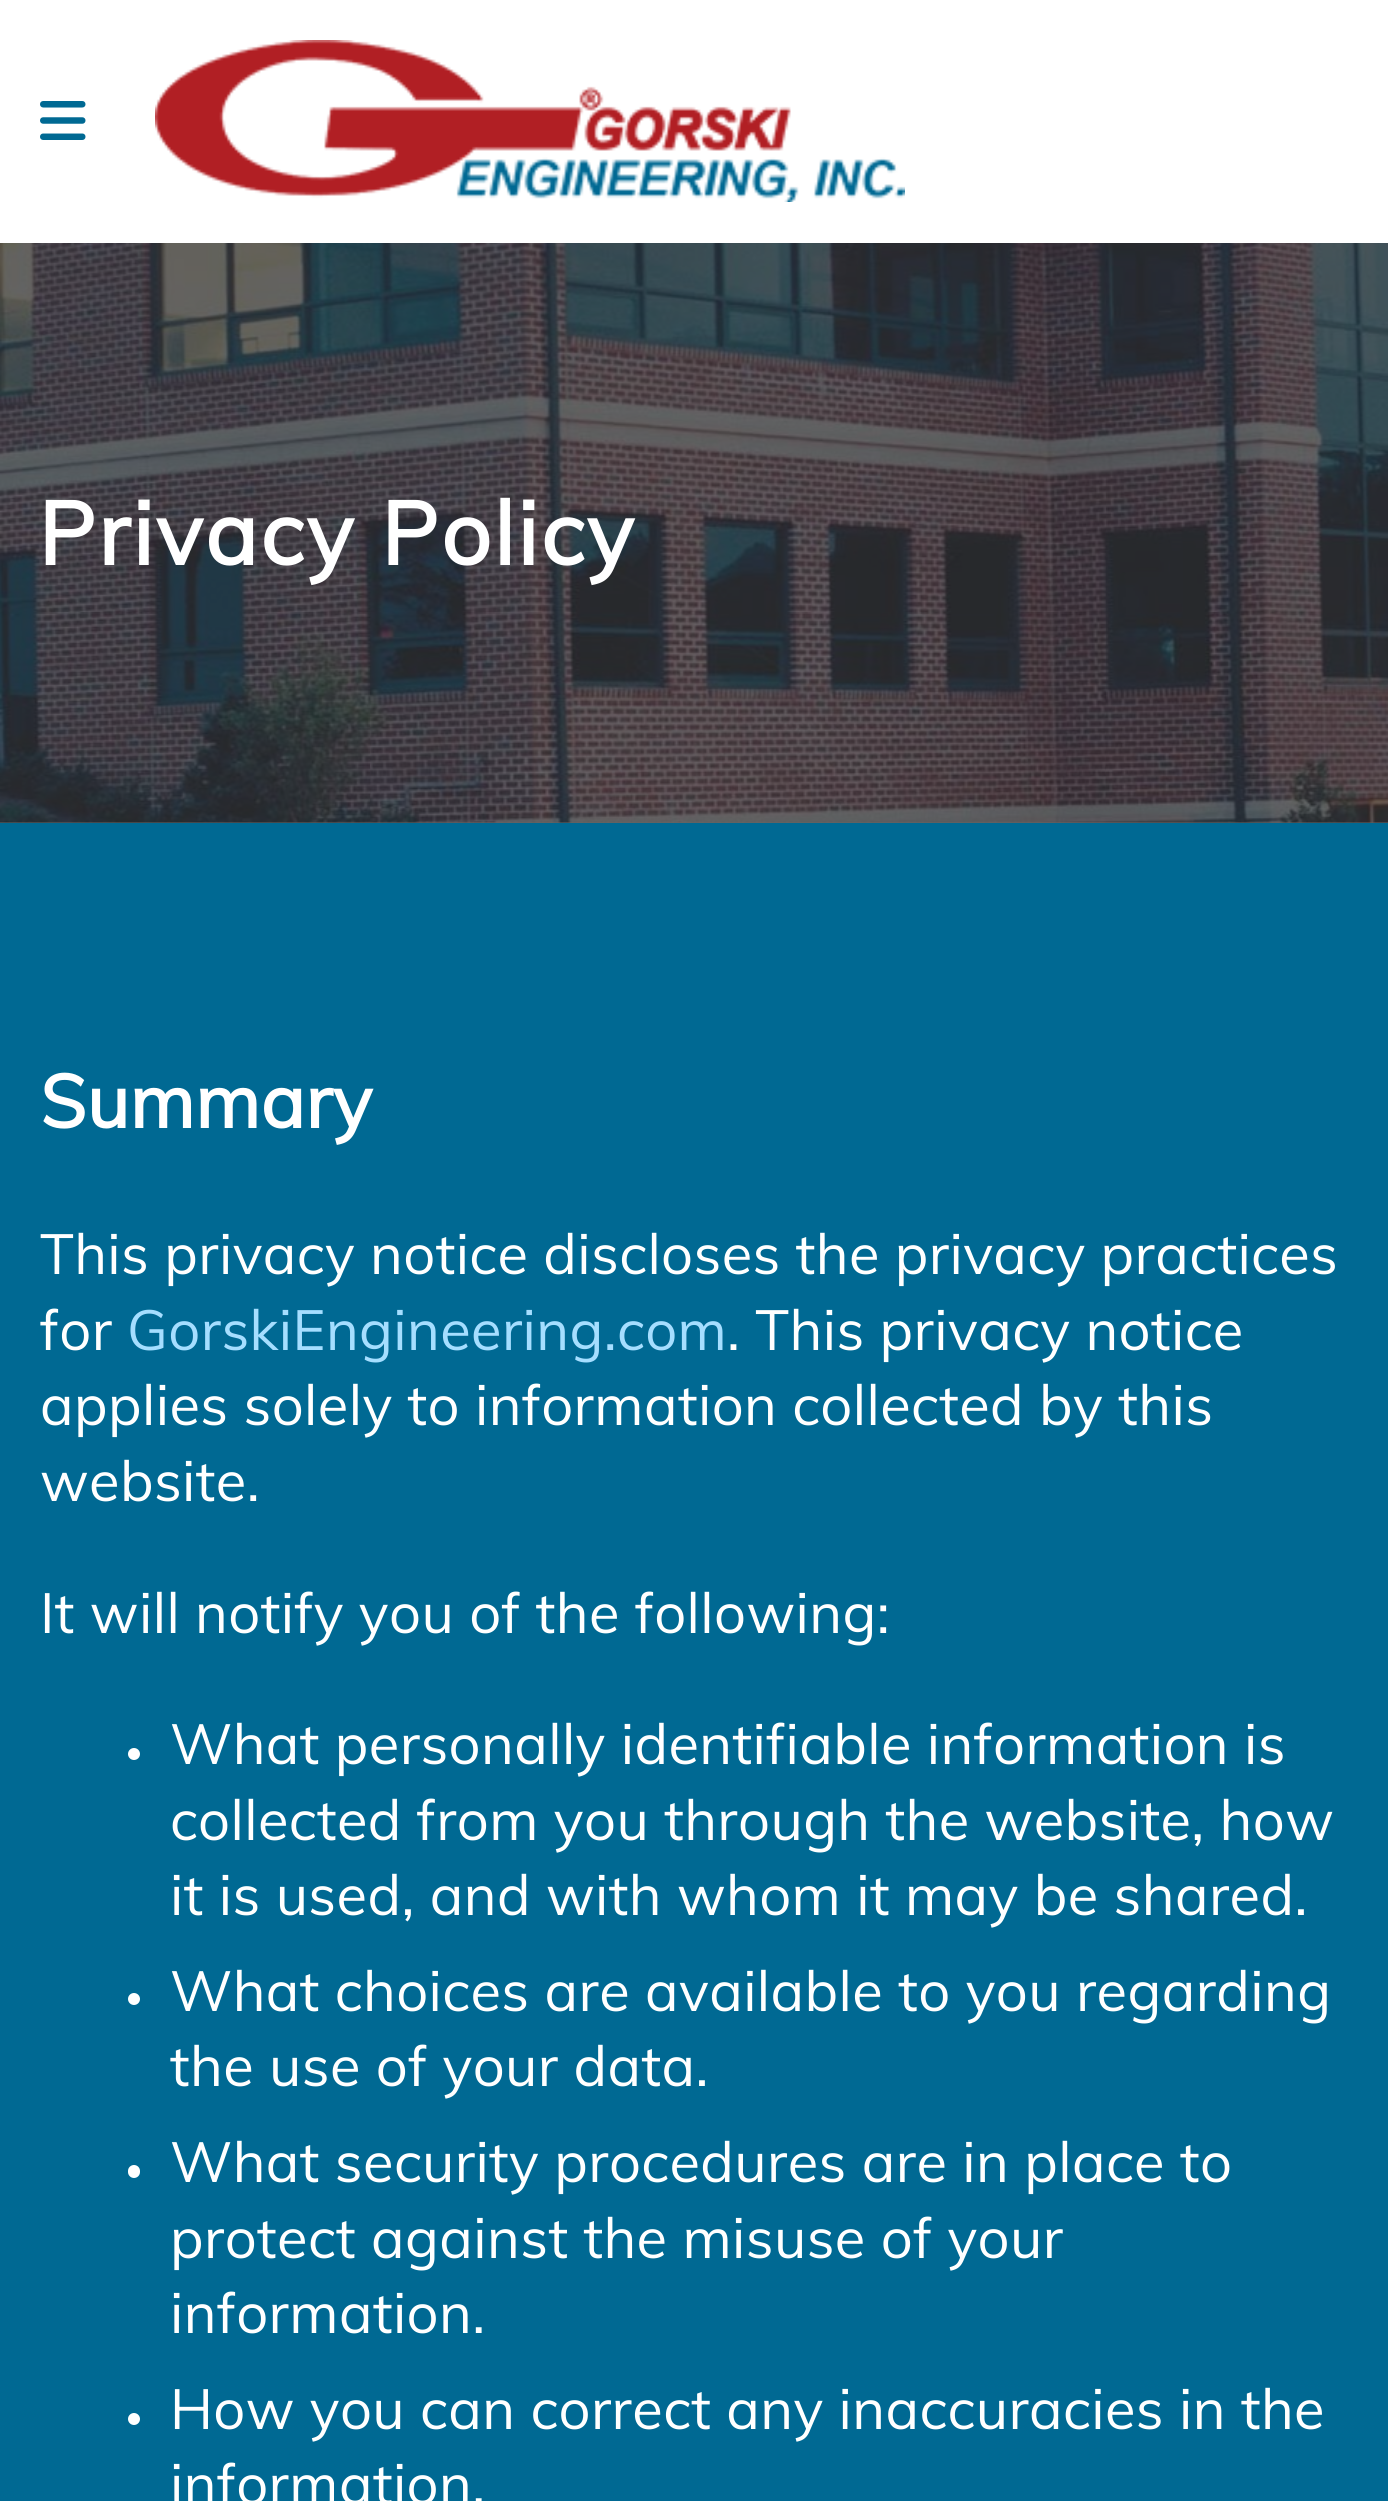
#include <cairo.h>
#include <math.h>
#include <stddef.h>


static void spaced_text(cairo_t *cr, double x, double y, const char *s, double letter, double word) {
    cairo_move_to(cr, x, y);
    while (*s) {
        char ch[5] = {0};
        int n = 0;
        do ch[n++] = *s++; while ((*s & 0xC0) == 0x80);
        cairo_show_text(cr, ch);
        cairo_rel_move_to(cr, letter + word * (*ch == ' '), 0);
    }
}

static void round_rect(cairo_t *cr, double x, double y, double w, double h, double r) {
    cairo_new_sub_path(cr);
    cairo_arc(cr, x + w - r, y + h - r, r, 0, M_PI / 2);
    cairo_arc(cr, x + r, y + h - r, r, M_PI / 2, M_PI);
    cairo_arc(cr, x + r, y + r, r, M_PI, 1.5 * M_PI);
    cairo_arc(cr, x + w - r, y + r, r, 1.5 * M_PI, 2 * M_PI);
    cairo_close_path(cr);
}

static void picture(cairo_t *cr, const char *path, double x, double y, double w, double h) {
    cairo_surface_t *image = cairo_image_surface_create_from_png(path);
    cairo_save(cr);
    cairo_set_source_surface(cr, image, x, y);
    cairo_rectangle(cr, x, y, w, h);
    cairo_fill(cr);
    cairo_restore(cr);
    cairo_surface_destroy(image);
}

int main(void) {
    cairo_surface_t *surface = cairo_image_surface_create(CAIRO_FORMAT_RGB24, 1388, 2501);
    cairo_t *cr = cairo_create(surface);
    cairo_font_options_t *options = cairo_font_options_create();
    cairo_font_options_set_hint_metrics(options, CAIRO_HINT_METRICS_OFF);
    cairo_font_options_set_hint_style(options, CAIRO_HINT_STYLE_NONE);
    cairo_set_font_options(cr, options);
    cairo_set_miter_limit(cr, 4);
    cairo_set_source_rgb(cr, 0.392, 0.392, 0.392);
    cairo_paint(cr);
    cairo_set_source_rgb(cr, 1, 1, 1);
    cairo_rectangle(cr, 0, 0, 1388, 243);
    cairo_fill(cr);
    picture(cr, "img1.png", 40, 101, 46, 39);
    picture(cr, "img2.png", 155, 40, 750, 162);
    picture(cr, "img3.png", 0, 243, 1388, 580);
    cairo_select_font_face(cr, "Muli", CAIRO_FONT_SLANT_NORMAL, CAIRO_FONT_WEIGHT_BOLD);
    cairo_set_font_size(cr, 88);
    spaced_text(cr, 38, 565, "Privacy Policy", 2.5, 0);
    cairo_set_source_rgb(cr, 0, 0.412, 0.576);
    cairo_rectangle(cr, 0, 823, 1388, 1678);
    cairo_fill(cr);
    cairo_set_font_size(cr, 74);
    cairo_set_source_rgb(cr, 1, 1, 1);
    spaced_text(cr, 40, 1128, "Summary", 0.4, 0);
    cairo_select_font_face(cr, "Muli", CAIRO_FONT_SLANT_NORMAL, CAIRO_FONT_WEIGHT_NORMAL);
    cairo_set_font_size(cr, 56);
    spaced_text(cr, 40, 1274, "This privacy notice discloses the privacy practices", 0.4, 0);
    spaced_text(cr, 40, 1350, "for", 0.4, 0);
    cairo_set_source_rgb(cr, 0.647, 0.871, 1);
    spaced_text(cr, 127, 1350, "GorskiEngineering.com", 0.4, 0);
    cairo_set_source_rgb(cr, 1, 1, 1);
    spaced_text(cr, 727, 1350, ". This privacy notice", 0.4, 0);
    spaced_text(cr, 40, 1425, "applies solely to information collected by this", 0.4, 0);
    spaced_text(cr, 40, 1501, "website.", 0.4, 0);
    spaced_text(cr, 40, 1633, "It will notify you of the following:", 0.4, 0);
    cairo_new_path(cr);
    cairo_arc(cr, 134, 1754, 6, 0, 2 * M_PI);
    cairo_fill(cr);
    spaced_text(cr, 170, 1764, "What personally identifiable information is", 0.4, 0);
    spaced_text(cr, 170, 1840, "collected from you through the website, how", 0.4, 0);
    spaced_text(cr, 170, 1915, "it is used, and with whom it may be shared.", 0.4, 0);
    cairo_new_path(cr);
    cairo_arc(cr, 134, 1999, 6, 0, 2 * M_PI);
    cairo_fill(cr);
    spaced_text(cr, 170, 2011, "What choices are available to you regarding", 0.4, 0);
    spaced_text(cr, 170, 2086, "the use of your data.", 0.4, 0);
    round_rect(cr, 128, 2165, 12, 13, 6);
    cairo_fill(cr);
    spaced_text(cr, 170, 2182, "What security procedures are in place to", 0.4, 0);
    spaced_text(cr, 170, 2258, "protect against the misuse of your", 0.4, 0);
    spaced_text(cr, 170, 2333, "information.", 0.4, 0);
    cairo_new_path(cr);
    cairo_arc(cr, 134, 2419, 6, 0, 2 * M_PI);
    cairo_fill(cr);
    spaced_text(cr, 170, 2429, "How you can correct any inaccuracies in the", 0.4, 0);
    spaced_text(cr, 170, 2504, "information.", 0.4, 0);
    cairo_surface_write_to_png(surface, "page.png");
    cairo_font_options_destroy(options);
    cairo_destroy(cr);
    cairo_surface_destroy(surface);
    return 0;
}
